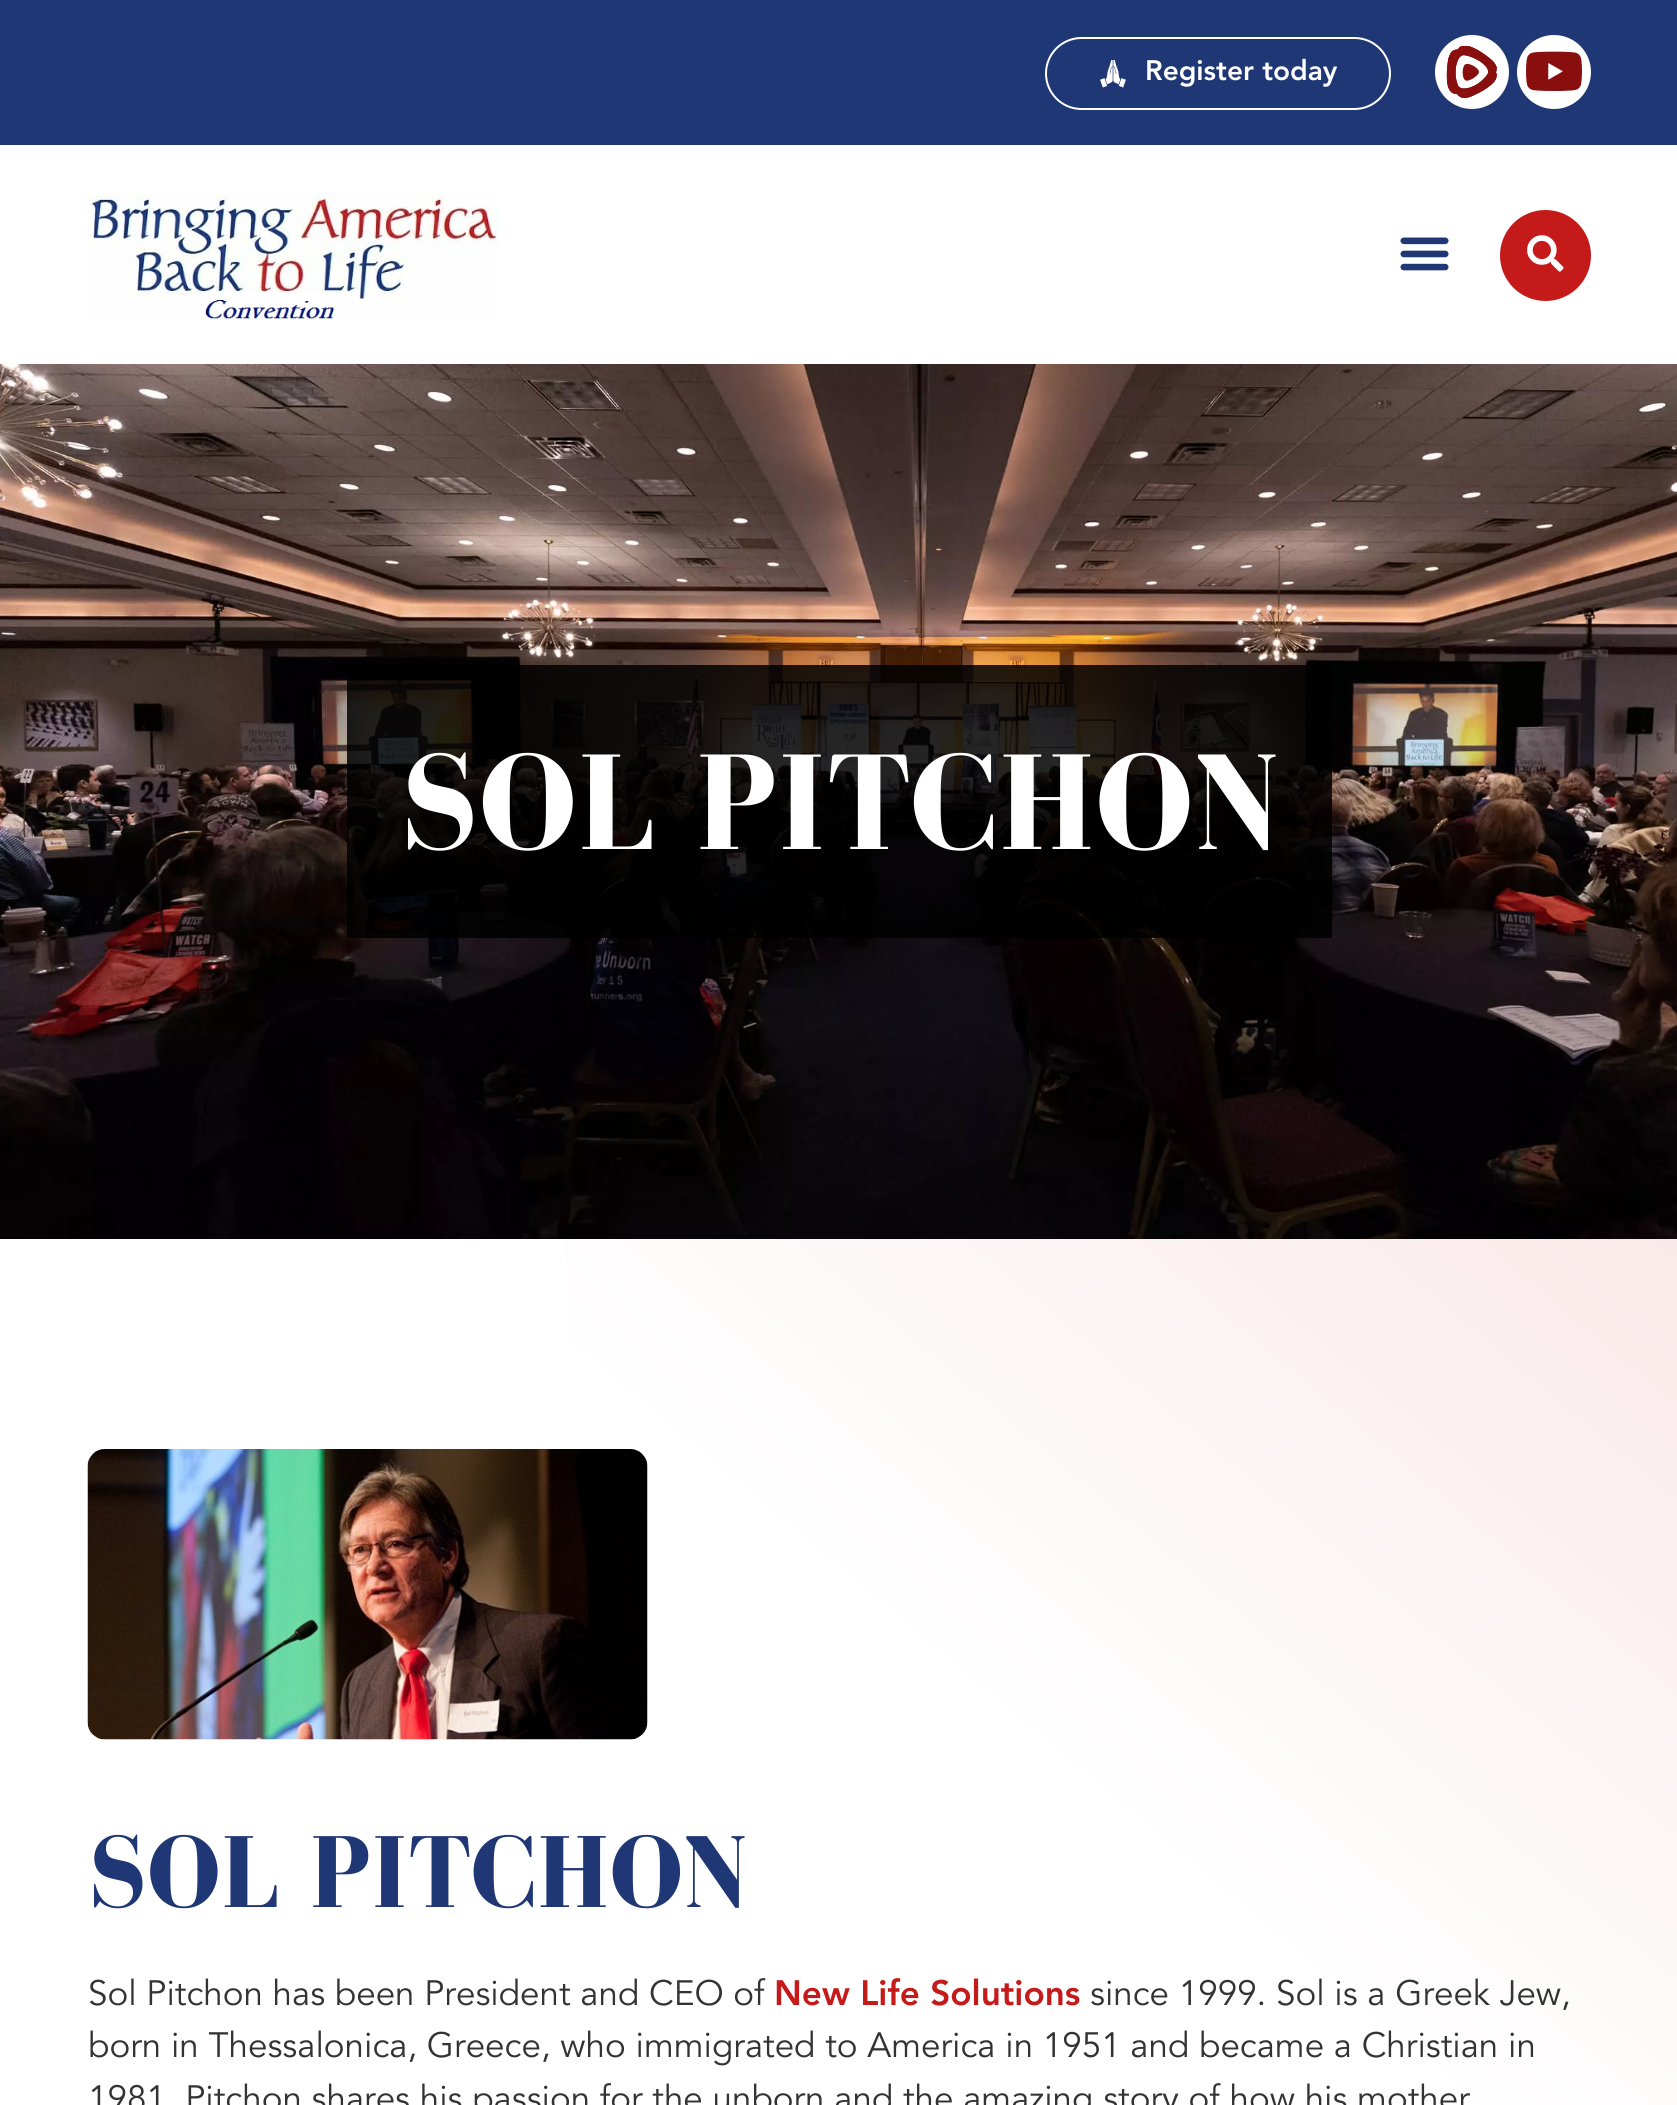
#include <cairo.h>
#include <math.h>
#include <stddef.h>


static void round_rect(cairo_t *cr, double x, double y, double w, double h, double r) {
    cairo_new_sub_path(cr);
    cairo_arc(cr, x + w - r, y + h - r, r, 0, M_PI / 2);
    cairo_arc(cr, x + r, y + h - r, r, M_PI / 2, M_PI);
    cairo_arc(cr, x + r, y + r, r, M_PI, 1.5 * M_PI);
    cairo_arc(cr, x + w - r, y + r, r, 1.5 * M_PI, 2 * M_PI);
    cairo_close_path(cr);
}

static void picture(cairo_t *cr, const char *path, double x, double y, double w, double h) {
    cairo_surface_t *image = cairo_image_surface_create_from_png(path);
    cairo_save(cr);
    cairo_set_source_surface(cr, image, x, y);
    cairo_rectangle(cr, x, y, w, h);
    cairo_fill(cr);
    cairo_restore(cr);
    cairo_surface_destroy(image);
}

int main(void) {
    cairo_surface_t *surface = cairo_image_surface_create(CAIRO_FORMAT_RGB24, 1677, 2105);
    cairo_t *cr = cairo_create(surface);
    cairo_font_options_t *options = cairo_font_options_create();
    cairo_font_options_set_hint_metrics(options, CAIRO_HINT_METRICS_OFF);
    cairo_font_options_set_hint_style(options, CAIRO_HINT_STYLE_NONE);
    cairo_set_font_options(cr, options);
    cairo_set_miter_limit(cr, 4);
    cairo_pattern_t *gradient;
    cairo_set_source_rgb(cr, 1, 1, 1);
    cairo_paint(cr);
    cairo_set_source_rgb(cr, 0.125, 0.216, 0.459);
    cairo_rectangle(cr, 0, 0, 1677, 145);
    cairo_fill(cr);
    round_rect(cr, 1046, 38, 344, 71, 35.5);
    cairo_set_source_rgb(cr, 1, 1, 1);
    cairo_stroke(cr);
    picture(cr, "img1.png", 1100, 60, 26, 28);
    cairo_select_font_face(cr, "Avenir Black", CAIRO_FONT_SLANT_NORMAL, CAIRO_FONT_WEIGHT_NORMAL);
    cairo_set_font_size(cr, 28);
    cairo_move_to(cr, 1145, 80);
    cairo_show_text(cr, "Register today");
    cairo_new_path(cr);
    cairo_arc(cr, 1472, 72, 37, 0, 2 * M_PI);
    cairo_fill(cr);
    picture(cr, "img2.png", 1446, 46, 51, 52);
    cairo_arc(cr, 1554, 72, 37, 0, 2 * M_PI);
    cairo_fill(cr);
    picture(cr, "img3.png", 1526, 51, 56, 40);
    picture(cr, "img4.png", 87, 194, 412, 126);
    picture(cr, "img5.png", 1400, 237, 49, 34);
    cairo_set_source_rgb(cr, 0.773, 0.102, 0.102);
    cairo_arc(cr, 1545.5, 255.5, 45.5, 0, 2 * M_PI);
    cairo_fill(cr);
    picture(cr, "img6.png", 1527, 235, 37, 37);
    picture(cr, "img7.png", 0, 364, 1677, 875);
    cairo_set_source_rgba(cr, 0, 0, 0, 0.85);
    cairo_rectangle(cr, 347, 665, 985, 273);
    cairo_fill(cr);
    cairo_select_font_face(cr, "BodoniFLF", CAIRO_FONT_SLANT_NORMAL, CAIRO_FONT_WEIGHT_BOLD);
    cairo_set_font_size(cr, 140);
    cairo_set_source_rgb(cr, 1, 1, 1);
    cairo_move_to(cr, 400, 849);
    cairo_show_text(cr, "SOL PITCHON");
    gradient = cairo_pattern_create_linear(-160, 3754, 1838, 1373);
    cairo_pattern_add_color_stop_rgba(gradient, 0.74, 1, 1, 1, 1);
    cairo_pattern_add_color_stop_rgba(gradient, 1, 0.98, 0.914, 0.914, 1);
    cairo_set_source(cr, gradient);
    cairo_pattern_destroy(gradient);
    cairo_rectangle(cr, 565, 1239, 1112, 866);
    cairo_fill(cr);
    picture(cr, "img8.png", 87, 1449, 561, 291);
    cairo_set_font_size(cr, 105);
    cairo_set_source_rgb(cr, 0.125, 0.216, 0.459);
    cairo_move_to(cr, 88, 1907);
    cairo_show_text(cr, "SOL PITCHON");
    cairo_select_font_face(cr, "Avenir", CAIRO_FONT_SLANT_NORMAL, CAIRO_FONT_WEIGHT_NORMAL);
    cairo_set_font_size(cr, 35);
    cairo_set_source_rgb(cr, 0.2, 0.2, 0.2);
    cairo_move_to(cr, 88, 2005);
    cairo_show_text(cr, "Sol Pitchon has been President and CEO of");
    cairo_select_font_face(cr, "Avenir Black", CAIRO_FONT_SLANT_NORMAL, CAIRO_FONT_WEIGHT_NORMAL);
    cairo_set_source_rgb(cr, 0.773, 0.102, 0.102);
    cairo_move_to(cr, 774, 2005);
    cairo_show_text(cr, "New Life Solutions");
    cairo_select_font_face(cr, "Avenir", CAIRO_FONT_SLANT_NORMAL, CAIRO_FONT_WEIGHT_NORMAL);
    cairo_set_source_rgb(cr, 0.2, 0.2, 0.2);
    cairo_move_to(cr, 1090, 2005);
    cairo_show_text(cr, "since 1999. Sol is a Greek Jew,");
    cairo_move_to(cr, 88, 2057);
    cairo_show_text(cr, "born in Thessalonica, Greece, who immigrated to America in 1951 and became a Christian in");
    cairo_move_to(cr, 88, 2110);
    cairo_show_text(cr, "1981. Pitchon shares his passion for the unborn and the amazing story of how his mother");
    cairo_surface_write_to_png(surface, "page.png");
    cairo_font_options_destroy(options);
    cairo_destroy(cr);
    cairo_surface_destroy(surface);
    return 0;
}
